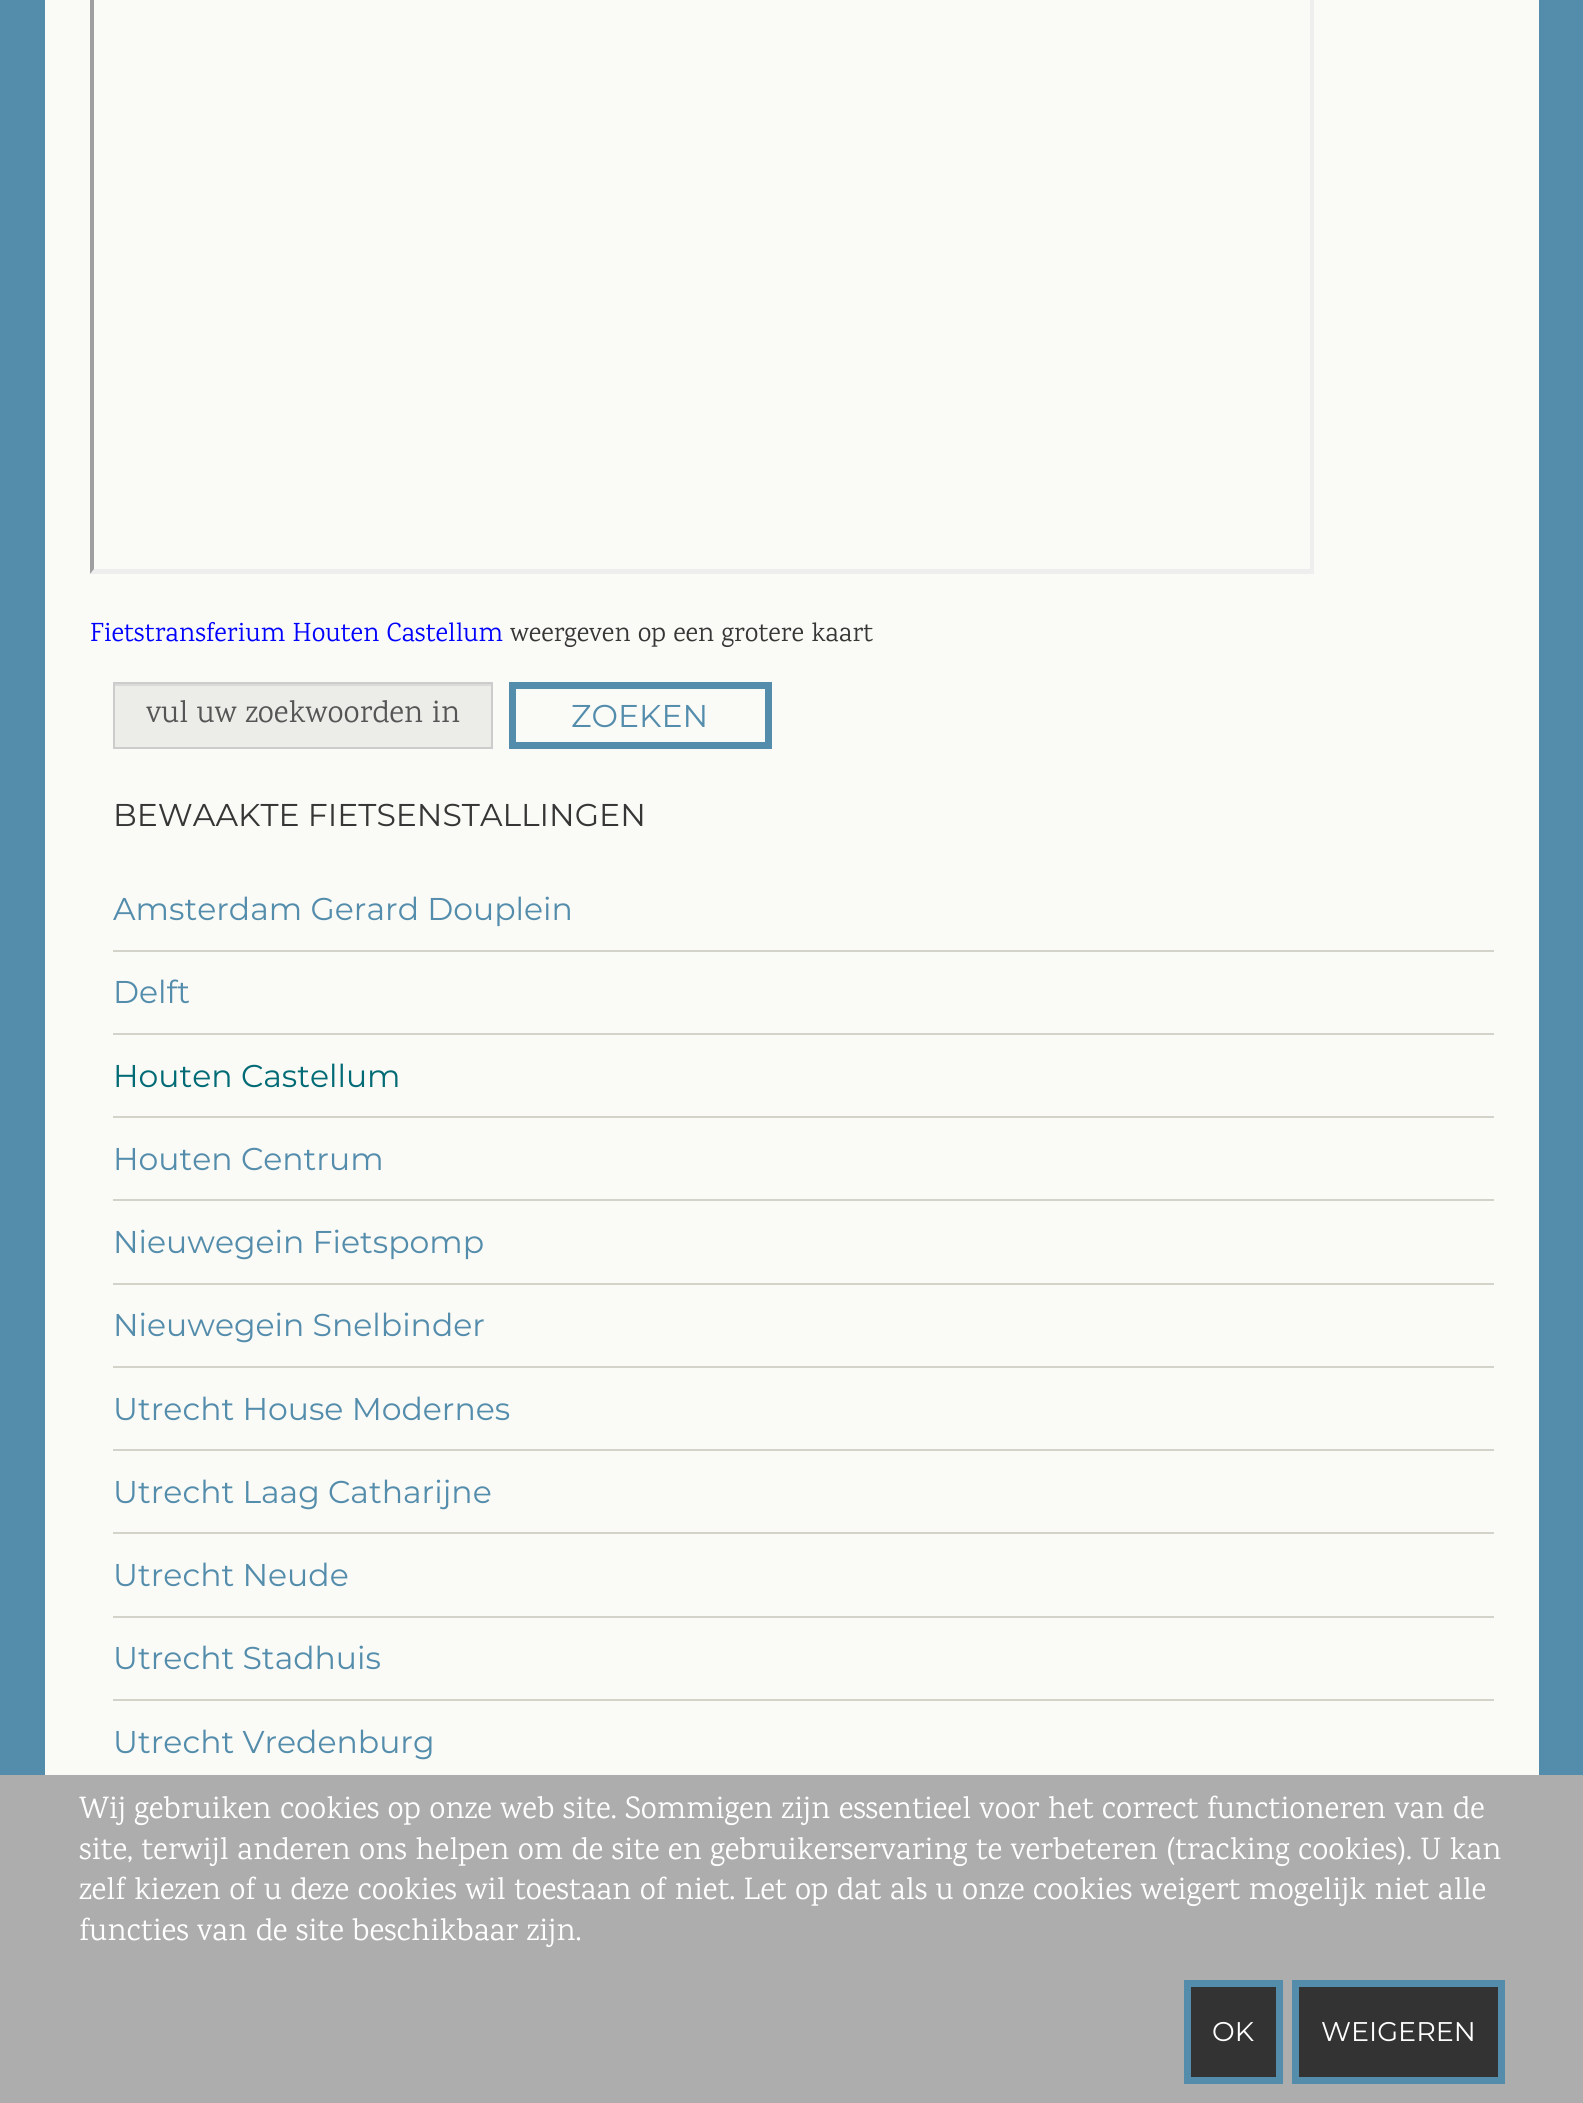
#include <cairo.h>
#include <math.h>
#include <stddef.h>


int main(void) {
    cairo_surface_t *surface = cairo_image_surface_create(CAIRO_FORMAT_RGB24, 1583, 2103);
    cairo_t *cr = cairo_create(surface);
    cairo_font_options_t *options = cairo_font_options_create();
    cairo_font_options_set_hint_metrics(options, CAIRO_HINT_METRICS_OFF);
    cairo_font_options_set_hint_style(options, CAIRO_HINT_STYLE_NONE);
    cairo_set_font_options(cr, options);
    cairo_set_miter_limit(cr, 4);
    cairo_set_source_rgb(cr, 0.98, 0.98, 0.961);
    cairo_paint(cr);
    cairo_rectangle(cr, 22.5, -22.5, 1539, 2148);
    cairo_set_source_rgb(cr, 0.329, 0.553, 0.675);
    cairo_set_line_width(cr, 45);
    cairo_stroke(cr);
    cairo_set_source_rgb(cr, 0.933, 0.933, 0.933);
    cairo_new_path(cr);
    cairo_move_to(cr, 1314, -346);
    cairo_line_to(cr, 1314, 574);
    cairo_line_to(cr, 1310, 569);
    cairo_line_to(cr, 1310, -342);
    cairo_close_path(cr);
    cairo_fill(cr);
    cairo_new_path(cr);
    cairo_move_to(cr, 1314, 574);
    cairo_line_to(cr, 90, 574);
    cairo_line_to(cr, 94, 569);
    cairo_line_to(cr, 1310, 569);
    cairo_close_path(cr);
    cairo_fill(cr);
    cairo_set_source_rgb(cr, 0.624, 0.624, 0.624);
    cairo_new_path(cr);
    cairo_move_to(cr, 90, 574);
    cairo_line_to(cr, 90, -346);
    cairo_line_to(cr, 94, -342);
    cairo_line_to(cr, 94, 569);
    cairo_close_path(cr);
    cairo_fill(cr);
    cairo_select_font_face(cr, "Karma", CAIRO_FONT_SLANT_NORMAL, CAIRO_FONT_WEIGHT_NORMAL);
    cairo_set_font_size(cr, 26.75);
    cairo_set_source_rgb(cr, 0, 0, 1);
    cairo_move_to(cr, 90, 641);
    cairo_show_text(cr, "Fietstransferium Houten Castellum");
    cairo_set_source_rgb(cr, 0.212, 0.212, 0.212);
    cairo_move_to(cr, 510, 641);
    cairo_show_text(cr, "weergeven op een grotere kaart");
    cairo_set_source_rgb(cr, 0.925, 0.925, 0.914);
    cairo_rectangle(cr, 115, 686, 376, 61);
    cairo_fill(cr);
    cairo_set_source_rgb(cr, 0.855, 0.855, 0.847);
    cairo_rectangle(cr, 115, 684, 376, 2);
    cairo_fill(cr);
    cairo_rectangle(cr, 114, 683, 378, 65);
    cairo_set_source_rgb(cr, 0.8, 0.8, 0.8);
    cairo_set_line_width(cr, 2);
    cairo_stroke(cr);
    cairo_set_font_size(cr, 31.5);
    cairo_set_source_rgb(cr, 0.333, 0.333, 0.333);
    cairo_move_to(cr, 146, 722);
    cairo_show_text(cr, "vul uw zoekwoorden in");
    cairo_rectangle(cr, 512.5, 685.5, 256, 60);
    cairo_set_source_rgb(cr, 0.329, 0.553, 0.675);
    cairo_set_line_width(cr, 7);
    cairo_stroke(cr);
    cairo_select_font_face(cr, "Montserrat", CAIRO_FONT_SLANT_NORMAL, CAIRO_FONT_WEIGHT_NORMAL);
    cairo_move_to(cr, 571, 727);
    cairo_show_text(cr, "ZOEKEN");
    cairo_set_source_rgb(cr, 0.212, 0.212, 0.212);
    cairo_move_to(cr, 113, 826);
    cairo_show_text(cr, "BEWAAKTE FIETSENSTALLINGEN");
    cairo_set_source_rgb(cr, 0.827, 0.827, 0.788);
    cairo_rectangle(cr, 113, 950, 1381, 2);
    cairo_fill(cr);
    cairo_set_source_rgb(cr, 0.329, 0.553, 0.675);
    cairo_move_to(cr, 113, 920);
    cairo_show_text(cr, "Amsterdam Gerard Douplein");
    cairo_set_source_rgb(cr, 0.827, 0.827, 0.788);
    cairo_rectangle(cr, 113, 1033, 1381, 2);
    cairo_fill(cr);
    cairo_set_source_rgb(cr, 0.329, 0.553, 0.675);
    cairo_move_to(cr, 113, 1003);
    cairo_show_text(cr, "Delft");
    cairo_set_source_rgb(cr, 0.827, 0.827, 0.788);
    cairo_rectangle(cr, 113, 1116, 1381, 2);
    cairo_fill(cr);
    cairo_set_source_rgb(cr, 0, 0.416, 0.459);
    cairo_move_to(cr, 113, 1087);
    cairo_show_text(cr, "Houten Castellum");
    cairo_set_source_rgb(cr, 0.827, 0.827, 0.788);
    cairo_rectangle(cr, 113, 1199, 1381, 2);
    cairo_fill(cr);
    cairo_set_source_rgb(cr, 0.329, 0.553, 0.675);
    cairo_move_to(cr, 113, 1170);
    cairo_show_text(cr, "Houten Centrum");
    cairo_set_source_rgb(cr, 0.827, 0.827, 0.788);
    cairo_rectangle(cr, 113, 1283, 1381, 2);
    cairo_fill(cr);
    cairo_set_source_rgb(cr, 0.329, 0.553, 0.675);
    cairo_move_to(cr, 113, 1253);
    cairo_show_text(cr, "Nieuwegein Fietspomp");
    cairo_set_source_rgb(cr, 0.827, 0.827, 0.788);
    cairo_rectangle(cr, 113, 1366, 1381, 2);
    cairo_fill(cr);
    cairo_set_source_rgb(cr, 0.329, 0.553, 0.675);
    cairo_move_to(cr, 113, 1336);
    cairo_show_text(cr, "Nieuwegein Snelbinder");
    cairo_set_source_rgb(cr, 0.827, 0.827, 0.788);
    cairo_rectangle(cr, 113, 1449, 1381, 2);
    cairo_fill(cr);
    cairo_set_source_rgb(cr, 0.329, 0.553, 0.675);
    cairo_move_to(cr, 113, 1420);
    cairo_show_text(cr, "Utrecht House Modernes");
    cairo_set_source_rgb(cr, 0.827, 0.827, 0.788);
    cairo_rectangle(cr, 113, 1532, 1381, 2);
    cairo_fill(cr);
    cairo_set_source_rgb(cr, 0.329, 0.553, 0.675);
    cairo_move_to(cr, 113, 1503);
    cairo_show_text(cr, "Utrecht Laag Catharijne");
    cairo_set_source_rgb(cr, 0.827, 0.827, 0.788);
    cairo_rectangle(cr, 113, 1616, 1381, 2);
    cairo_fill(cr);
    cairo_set_source_rgb(cr, 0.329, 0.553, 0.675);
    cairo_move_to(cr, 113, 1586);
    cairo_show_text(cr, "Utrecht Neude");
    cairo_set_source_rgb(cr, 0.827, 0.827, 0.788);
    cairo_rectangle(cr, 113, 1699, 1381, 2);
    cairo_fill(cr);
    cairo_set_source_rgb(cr, 0.329, 0.553, 0.675);
    cairo_move_to(cr, 113, 1669);
    cairo_show_text(cr, "Utrecht Stadhuis");
    cairo_move_to(cr, 113, 1753);
    cairo_show_text(cr, "Utrecht Vredenburg");
    cairo_set_source_rgb(cr, 0.678, 0.678, 0.678);
    cairo_rectangle(cr, 0, 1775, 1583, 328);
    cairo_fill(cr);
    cairo_select_font_face(cr, "Karma", CAIRO_FONT_SLANT_NORMAL, CAIRO_FONT_WEIGHT_NORMAL);
    cairo_set_source_rgb(cr, 1, 1, 1);
    cairo_move_to(cr, 79, 1818);
    cairo_show_text(cr, "Wij gebruiken cookies op onze web site. Sommigen zijn essentieel voor het correct functioneren van de");
    cairo_move_to(cr, 79, 1859);
    cairo_show_text(cr, "site, terwijl anderen ons helpen om de site en gebruikerservaring te verbeteren (tracking cookies). U kan");
    cairo_move_to(cr, 79, 1899);
    cairo_show_text(cr, "zelf kiezen of u deze cookies wil toestaan of niet. Let op dat als u onze cookies weigert mogelijk niet alle");
    cairo_move_to(cr, 79, 1940);
    cairo_show_text(cr, "functies van de site beschikbaar zijn.");
    cairo_set_source_rgb(cr, 0.2, 0.2, 0.2);
    cairo_rectangle(cr, 1187.5, 1983.5, 92, 97);
    cairo_fill_preserve(cr);
    cairo_set_source_rgb(cr, 0.329, 0.553, 0.675);
    cairo_stroke(cr);
    cairo_select_font_face(cr, "Montserrat", CAIRO_FONT_SLANT_NORMAL, CAIRO_FONT_WEIGHT_NORMAL);
    cairo_set_font_size(cr, 27);
    cairo_set_source_rgb(cr, 1, 1, 1);
    cairo_move_to(cr, 1212, 2041);
    cairo_show_text(cr, "OK");
    cairo_set_source_rgb(cr, 0.2, 0.2, 0.2);
    cairo_rectangle(cr, 1295.5, 1983.5, 206, 97);
    cairo_fill_preserve(cr);
    cairo_set_source_rgb(cr, 0.329, 0.553, 0.675);
    cairo_stroke(cr);
    cairo_set_source_rgb(cr, 1, 1, 1);
    cairo_move_to(cr, 1321, 2041);
    cairo_show_text(cr, "WEIGEREN");
    cairo_surface_write_to_png(surface, "page.png");
    cairo_font_options_destroy(options);
    cairo_destroy(cr);
    cairo_surface_destroy(surface);
    return 0;
}
